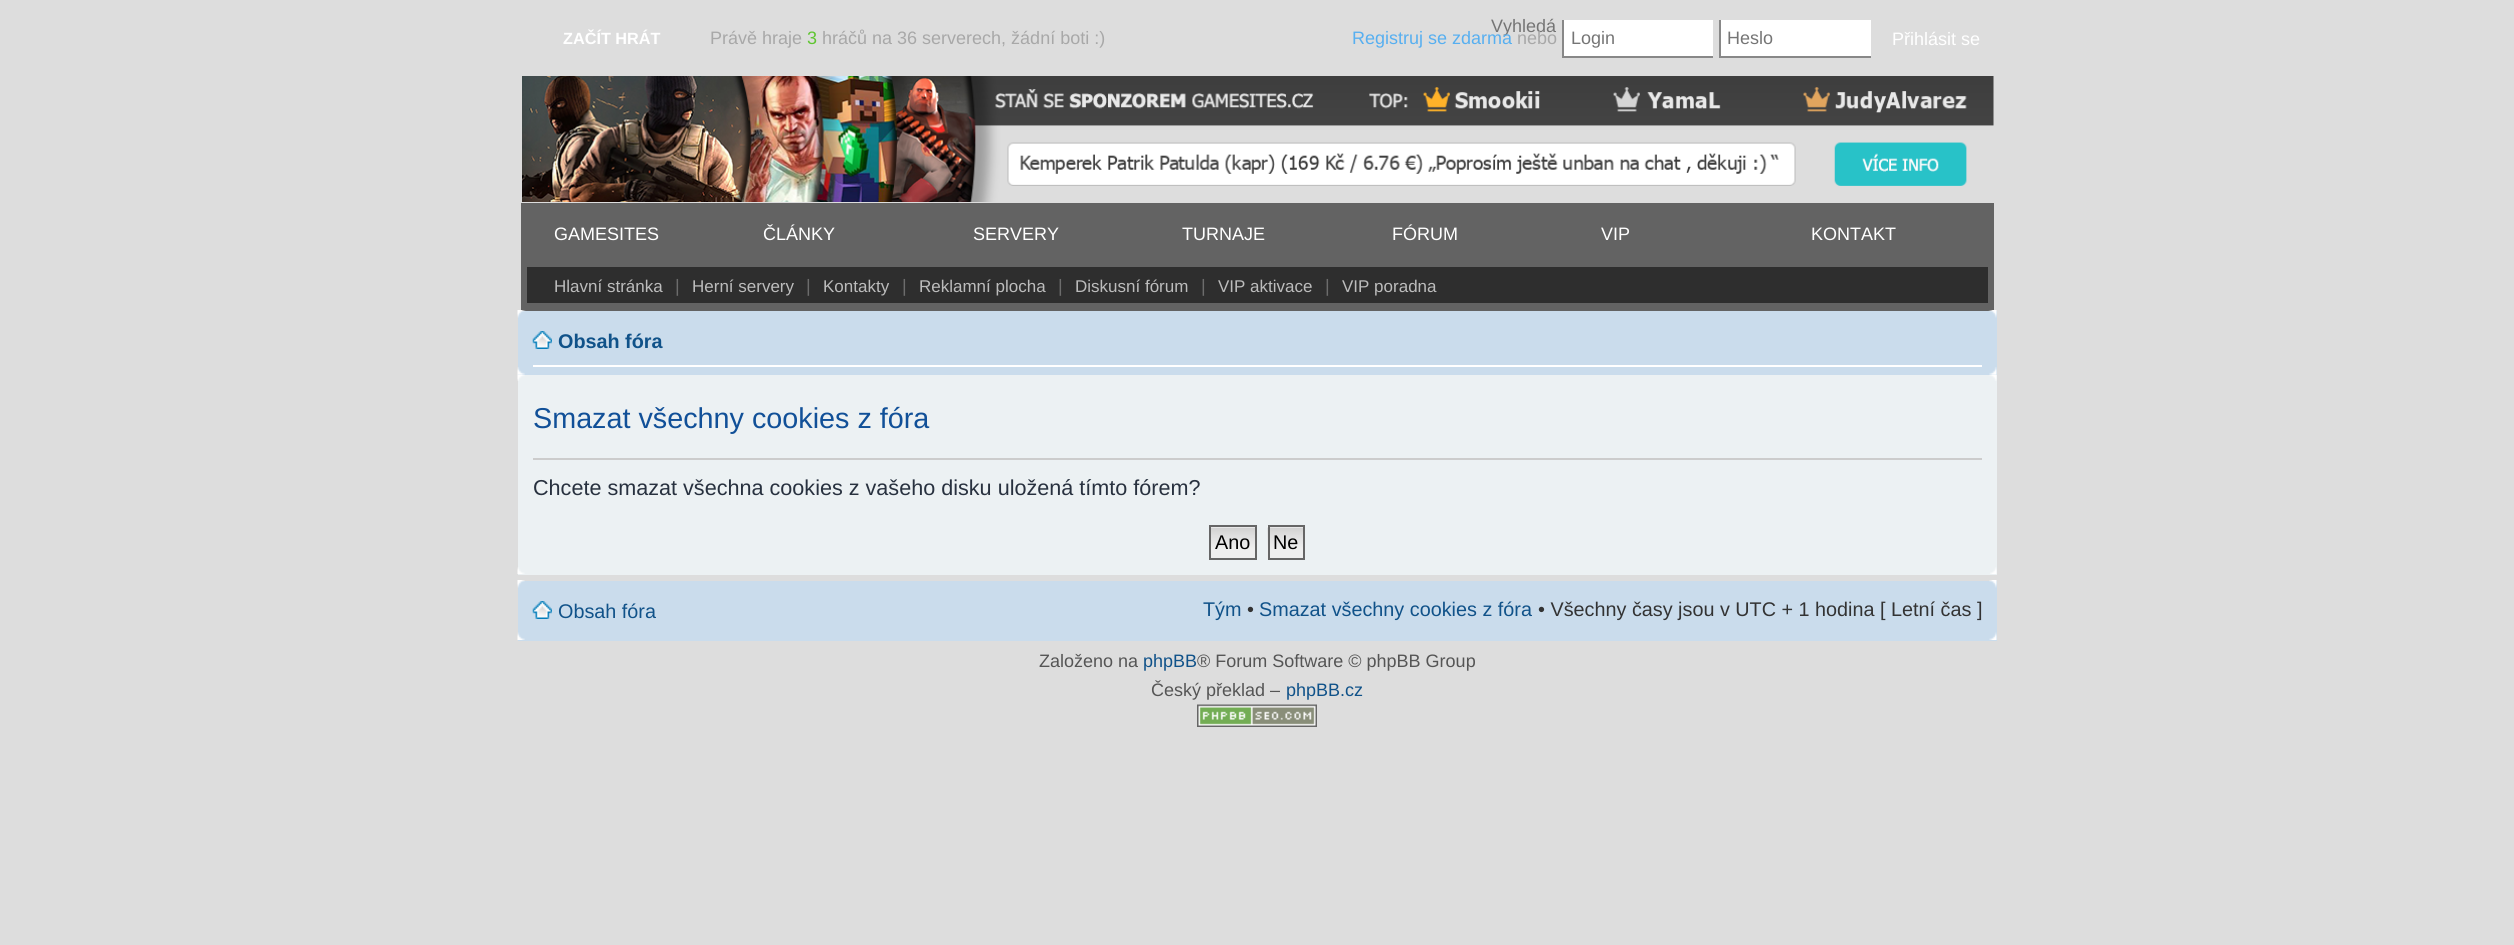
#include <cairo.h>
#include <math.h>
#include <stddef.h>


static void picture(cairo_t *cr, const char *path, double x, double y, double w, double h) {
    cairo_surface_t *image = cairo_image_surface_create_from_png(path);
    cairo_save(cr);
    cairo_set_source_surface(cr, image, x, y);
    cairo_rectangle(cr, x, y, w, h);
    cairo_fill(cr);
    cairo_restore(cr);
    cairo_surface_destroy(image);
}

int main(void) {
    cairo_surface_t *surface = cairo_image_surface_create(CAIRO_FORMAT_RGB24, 2514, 945);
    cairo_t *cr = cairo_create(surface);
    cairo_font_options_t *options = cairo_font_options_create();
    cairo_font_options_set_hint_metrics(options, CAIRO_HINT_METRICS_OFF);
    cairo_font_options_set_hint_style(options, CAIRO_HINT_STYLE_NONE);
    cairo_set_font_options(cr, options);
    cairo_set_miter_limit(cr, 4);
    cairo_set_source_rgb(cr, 0.867, 0.867, 0.867);
    cairo_paint(cr);
    cairo_select_font_face(cr, "Liberation Sans", CAIRO_FONT_SLANT_NORMAL, CAIRO_FONT_WEIGHT_NORMAL);
    cairo_set_font_size(cr, 18);
    cairo_set_source_rgb(cr, 0.459, 0.459, 0.459);
    cairo_move_to(cr, 1491, 32);
    cairo_show_text(cr, "Vyhledá");
    picture(cr, "img1.png", 522, 76, 1472, 126);
    cairo_set_source_rgb(cr, 0.388, 0.388, 0.388);
    cairo_rectangle(cr, 521, 203, 1473, 108);
    cairo_fill(cr);
    cairo_set_source_rgb(cr, 1, 1, 1);
    cairo_move_to(cr, 554, 240);
    cairo_show_text(cr, "GAMESITES");
    cairo_move_to(cr, 763, 240);
    cairo_show_text(cr, "ČLÁNKY");
    cairo_move_to(cr, 973, 240);
    cairo_show_text(cr, "SERVERY");
    cairo_move_to(cr, 1182, 240);
    cairo_show_text(cr, "TURNAJE");
    cairo_move_to(cr, 1392, 240);
    cairo_show_text(cr, "FÓRUM");
    cairo_move_to(cr, 1601, 240);
    cairo_show_text(cr, "VIP");
    cairo_move_to(cr, 1811, 240);
    cairo_show_text(cr, "KONTAKT");
    cairo_set_source_rgb(cr, 0.18, 0.18, 0.18);
    cairo_rectangle(cr, 527, 267, 1461, 36);
    cairo_fill(cr);
    cairo_set_font_size(cr, 17);
    cairo_set_source_rgb(cr, 0.737, 0.737, 0.737);
    cairo_move_to(cr, 554, 292);
    cairo_show_text(cr, "Hlavní stránka");
    cairo_set_font_size(cr, 18);
    cairo_set_source_rgb(cr, 0.424, 0.424, 0.424);
    cairo_move_to(cr, 675, 292);
    cairo_show_text(cr, "|");
    cairo_set_font_size(cr, 17);
    cairo_set_source_rgb(cr, 0.737, 0.737, 0.737);
    cairo_move_to(cr, 692, 292);
    cairo_show_text(cr, "Herní servery");
    cairo_set_font_size(cr, 18);
    cairo_set_source_rgb(cr, 0.424, 0.424, 0.424);
    cairo_move_to(cr, 806, 292);
    cairo_show_text(cr, "|");
    cairo_set_font_size(cr, 17);
    cairo_set_source_rgb(cr, 0.737, 0.737, 0.737);
    cairo_move_to(cr, 823, 292);
    cairo_show_text(cr, "Kontakty");
    cairo_set_font_size(cr, 18);
    cairo_set_source_rgb(cr, 0.424, 0.424, 0.424);
    cairo_move_to(cr, 902, 292);
    cairo_show_text(cr, "|");
    cairo_set_font_size(cr, 17);
    cairo_set_source_rgb(cr, 0.737, 0.737, 0.737);
    cairo_move_to(cr, 919, 292);
    cairo_show_text(cr, "Reklamní plocha");
    cairo_set_font_size(cr, 18);
    cairo_set_source_rgb(cr, 0.424, 0.424, 0.424);
    cairo_move_to(cr, 1058, 292);
    cairo_show_text(cr, "|");
    cairo_set_font_size(cr, 17);
    cairo_set_source_rgb(cr, 0.737, 0.737, 0.737);
    cairo_move_to(cr, 1075, 292);
    cairo_show_text(cr, "Diskusní fórum");
    cairo_set_font_size(cr, 18);
    cairo_set_source_rgb(cr, 0.424, 0.424, 0.424);
    cairo_move_to(cr, 1201, 292);
    cairo_show_text(cr, "|");
    cairo_set_font_size(cr, 17);
    cairo_set_source_rgb(cr, 0.737, 0.737, 0.737);
    cairo_move_to(cr, 1218, 292);
    cairo_show_text(cr, "VIP aktivace");
    cairo_set_font_size(cr, 18);
    cairo_set_source_rgb(cr, 0.424, 0.424, 0.424);
    cairo_move_to(cr, 1325, 292);
    cairo_show_text(cr, "|");
    cairo_set_font_size(cr, 17);
    cairo_set_source_rgb(cr, 0.737, 0.737, 0.737);
    cairo_move_to(cr, 1342, 292);
    cairo_show_text(cr, "VIP poradna");
    cairo_set_source_rgb(cr, 0.792, 0.863, 0.922);
    cairo_rectangle(cr, 518, 311, 1479, 64);
    cairo_fill(cr);
    picture(cr, "img2.png", 517, 310, 9, 8);
    picture(cr, "img3.png", 1988, 310, 9, 8);
    cairo_set_source_rgb(cr, 1, 1, 1);
    cairo_rectangle(cr, 533, 365, 1449, 2);
    cairo_fill(cr);
    picture(cr, "img4.png", 532, 331, 20, 18);
    cairo_select_font_face(cr, "Liberation Sans", CAIRO_FONT_SLANT_NORMAL, CAIRO_FONT_WEIGHT_BOLD);
    cairo_set_font_size(cr, 19.8);
    cairo_set_source_rgb(cr, 0.063, 0.322, 0.537);
    cairo_move_to(cr, 558, 348);
    cairo_show_text(cr, "Obsah fóra");
    picture(cr, "img5.png", 517, 367, 8, 8);
    picture(cr, "img6.png", 1989, 367, 8, 8);
    cairo_set_source_rgb(cr, 0.925, 0.945, 0.953);
    cairo_rectangle(cr, 518, 375, 1479, 200);
    cairo_fill(cr);
    picture(cr, "img7.png", 517, 374, 8, 7);
    picture(cr, "img8.png", 1989, 374, 8, 7);
    cairo_set_source_rgb(cr, 0.8, 0.8, 0.8);
    cairo_rectangle(cr, 533, 458, 1449, 2);
    cairo_fill(cr);
    cairo_select_font_face(cr, "Liberation Sans", CAIRO_FONT_SLANT_NORMAL, CAIRO_FONT_WEIGHT_NORMAL);
    cairo_set_font_size(cr, 28.75);
    cairo_set_source_rgb(cr, 0.067, 0.314, 0.596);
    cairo_move_to(cr, 533, 428);
    cairo_show_text(cr, "Smazat všechny cookies z fóra");
    cairo_set_font_size(cr, 21.6);
    cairo_set_source_rgb(cr, 0.157, 0.192, 0.247);
    cairo_move_to(cr, 533, 495);
    cairo_show_text(cr, "Chcete smazat všechna cookies z vašeho disku uložená tímto fórem?");
    picture(cr, "img9.png", 1211, 527, 44, 31);
    cairo_rectangle(cr, 1210, 526, 46, 33);
    cairo_set_source_rgb(cr, 0.4, 0.4, 0.4);
    cairo_stroke(cr);
    cairo_set_font_size(cr, 19.8);
    cairo_set_source_rgb(cr, 0, 0, 0);
    cairo_move_to(cr, 1215, 549);
    cairo_show_text(cr, "Ano");
    picture(cr, "img10.png", 1267, 526, 36, 33);
    cairo_rectangle(cr, 1269, 526, 35, 33);
    cairo_set_source_rgb(cr, 0.4, 0.4, 0.4);
    cairo_stroke(cr);
    cairo_set_source_rgb(cr, 0, 0, 0);
    cairo_move_to(cr, 1273, 549);
    cairo_show_text(cr, "Ne");
    picture(cr, "img11.png", 517, 567, 8, 7);
    picture(cr, "img12.png", 1990, 567, 7, 7);
    cairo_set_source_rgb(cr, 0.792, 0.863, 0.922);
    cairo_rectangle(cr, 518, 581, 1479, 60);
    cairo_fill(cr);
    picture(cr, "img13.png", 517, 580, 8, 8);
    picture(cr, "img14.png", 1989, 580, 8, 8);
    picture(cr, "img4.png", 532, 601, 20, 18);
    cairo_set_source_rgb(cr, 0.063, 0.322, 0.537);
    cairo_move_to(cr, 558, 618);
    cairo_show_text(cr, "Obsah fóra");
    cairo_move_to(cr, 1203, 616);
    cairo_show_text(cr, "Tým");
    cairo_set_source_rgb(cr, 0.2, 0.2, 0.2);
    cairo_move_to(cr, 1247, 616);
    cairo_show_text(cr, "•");
    cairo_set_source_rgb(cr, 0.063, 0.322, 0.537);
    cairo_move_to(cr, 1259, 616);
    cairo_show_text(cr, "Smazat všechny cookies z fóra");
    cairo_set_source_rgb(cr, 0.2, 0.2, 0.2);
    cairo_move_to(cr, 1538, 616);
    cairo_show_text(cr, "• Všechny časy jsou v UTC + 1 hodina [ Letní čas ]");
    picture(cr, "img15.png", 517, 632, 8, 8);
    picture(cr, "img16.png", 1989, 632, 8, 8);
    cairo_set_font_size(cr, 18);
    cairo_set_source_rgb(cr, 0.333, 0.333, 0.333);
    cairo_move_to(cr, 1039, 667);
    cairo_show_text(cr, "Založeno na");
    cairo_set_source_rgb(cr, 0.063, 0.322, 0.537);
    cairo_move_to(cr, 1143, 667);
    cairo_show_text(cr, "phpBB");
    cairo_set_source_rgb(cr, 0.333, 0.333, 0.333);
    cairo_move_to(cr, 1197, 667);
    cairo_show_text(cr, "® Forum Software © phpBB Group");
    cairo_move_to(cr, 1151, 696);
    cairo_show_text(cr, "Český překlad –");
    cairo_set_source_rgb(cr, 0.063, 0.322, 0.537);
    cairo_move_to(cr, 1286, 696);
    cairo_show_text(cr, "phpBB.cz");
    picture(cr, "img17.png", 1197, 704, 120, 23);
    cairo_select_font_face(cr, "Liberation Sans", CAIRO_FONT_SLANT_NORMAL, CAIRO_FONT_WEIGHT_BOLD);
    cairo_set_font_size(cr, 16.25);
    cairo_set_source_rgb(cr, 1, 1, 1);
    cairo_move_to(cr, 563, 44);
    cairo_show_text(cr, "ZAČÍT HRÁT");
    cairo_select_font_face(cr, "Liberation Sans", CAIRO_FONT_SLANT_NORMAL, CAIRO_FONT_WEIGHT_NORMAL);
    cairo_set_font_size(cr, 18);
    cairo_set_source_rgb(cr, 0.659, 0.659, 0.659);
    cairo_move_to(cr, 710, 44);
    cairo_show_text(cr, "Právě hraje");
    cairo_set_source_rgb(cr, 0.373, 0.773, 0.192);
    cairo_move_to(cr, 807, 44);
    cairo_show_text(cr, "3");
    cairo_set_source_rgb(cr, 0.659, 0.659, 0.659);
    cairo_move_to(cr, 822, 44);
    cairo_show_text(cr, "hráčů na 36 serverech, žádní boti :)");
    cairo_set_source_rgb(cr, 0.341, 0.686, 0.941);
    cairo_move_to(cr, 1352, 44);
    cairo_show_text(cr, "Registruj se zdarma");
    cairo_set_source_rgb(cr, 0.659, 0.659, 0.659);
    cairo_move_to(cr, 1517, 44);
    cairo_show_text(cr, "nebo");
    cairo_set_source_rgb(cr, 1, 1, 1);
    cairo_rectangle(cr, 1564, 20, 149, 36);
    cairo_fill(cr);
    cairo_set_source_rgb(cr, 0.533, 0.533, 0.533);
    cairo_rectangle(cr, 1562, 56, 151, 2);
    cairo_fill(cr);
    cairo_rectangle(cr, 1562, 20, 2, 37);
    cairo_fill(cr);
    cairo_set_source_rgb(cr, 0.459, 0.459, 0.459);
    cairo_move_to(cr, 1571, 44);
    cairo_show_text(cr, "Login");
    cairo_set_source_rgb(cr, 1, 1, 1);
    cairo_rectangle(cr, 1721, 20, 150, 36);
    cairo_fill(cr);
    cairo_set_source_rgb(cr, 0.533, 0.533, 0.533);
    cairo_rectangle(cr, 1719, 56, 152, 2);
    cairo_fill(cr);
    cairo_rectangle(cr, 1719, 20, 2, 37);
    cairo_fill(cr);
    cairo_set_source_rgb(cr, 0.459, 0.459, 0.459);
    cairo_move_to(cr, 1727, 44);
    cairo_show_text(cr, "Heslo");
    cairo_set_source_rgb(cr, 1, 1, 1);
    cairo_move_to(cr, 1892, 45);
    cairo_show_text(cr, "Přihlásit se");
    cairo_surface_write_to_png(surface, "page.png");
    cairo_font_options_destroy(options);
    cairo_destroy(cr);
    cairo_surface_destroy(surface);
    return 0;
}
